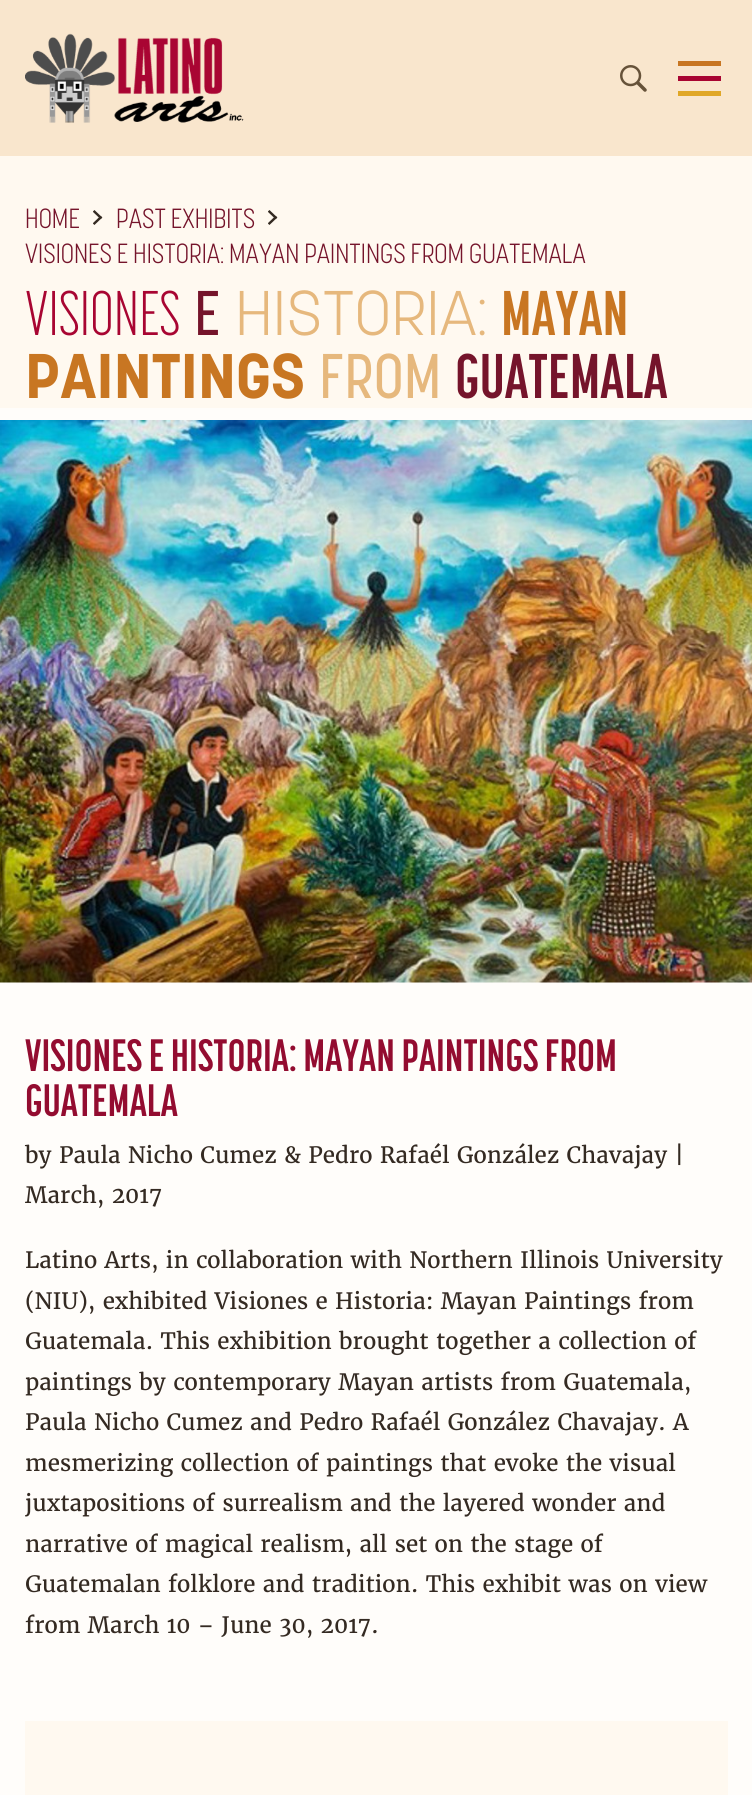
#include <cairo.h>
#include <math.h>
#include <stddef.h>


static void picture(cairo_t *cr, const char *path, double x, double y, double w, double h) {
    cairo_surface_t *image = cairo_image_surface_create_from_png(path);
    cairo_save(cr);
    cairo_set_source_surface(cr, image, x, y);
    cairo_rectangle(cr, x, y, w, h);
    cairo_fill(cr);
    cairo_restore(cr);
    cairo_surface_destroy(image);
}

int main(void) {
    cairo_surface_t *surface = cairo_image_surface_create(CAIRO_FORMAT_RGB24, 752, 1795);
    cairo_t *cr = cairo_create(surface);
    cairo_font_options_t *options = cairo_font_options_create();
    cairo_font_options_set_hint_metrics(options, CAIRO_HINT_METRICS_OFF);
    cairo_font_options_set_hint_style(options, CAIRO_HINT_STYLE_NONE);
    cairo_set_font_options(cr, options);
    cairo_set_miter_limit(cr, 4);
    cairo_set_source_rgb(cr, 1, 0.992, 0.98);
    cairo_paint(cr);
    cairo_set_source_rgb(cr, 0.976, 0.902, 0.804);
    cairo_rectangle(cr, 0, 0, 752, 156);
    cairo_fill(cr);
    picture(cr, "img1.png", 25, 33, 219, 90);
    picture(cr, "img2.png", 620, 65, 27, 27);
    cairo_set_source_rgb(cr, 0.784, 0.463, 0.133);
    cairo_rectangle(cr, 678, 61, 43, 5);
    cairo_fill(cr);
    cairo_set_source_rgb(cr, 0.659, 0.02, 0.196);
    cairo_rectangle(cr, 678, 76, 43, 5);
    cairo_fill(cr);
    cairo_set_source_rgb(cr, 0.878, 0.655, 0.153);
    cairo_rectangle(cr, 678, 91, 43, 5);
    cairo_fill(cr);
    cairo_set_source_rgb(cr, 1, 0.973, 0.941);
    cairo_rectangle(cr, 0, 156, 752, 252);
    cairo_fill(cr);
    cairo_select_font_face(cr, "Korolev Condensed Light", CAIRO_FONT_SLANT_NORMAL, CAIRO_FONT_WEIGHT_NORMAL);
    cairo_set_font_size(cr, 27.5);
    cairo_set_source_rgb(cr, 0.459, 0.082, 0.169);
    cairo_move_to(cr, 25, 228);
    cairo_show_text(cr, "HOME");
    picture(cr, "img3.png", 93, 210, 10, 15);
    cairo_move_to(cr, 116, 228);
    cairo_show_text(cr, "PAST EXHIBITS");
    picture(cr, "img3.png", 268, 210, 10, 15);
    cairo_move_to(cr, 25, 263);
    cairo_show_text(cr, "VISIONES E HISTORIA: MAYAN PAINTINGS FROM GUATEMALA");
    cairo_select_font_face(cr, "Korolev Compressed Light", CAIRO_FONT_SLANT_NORMAL, CAIRO_FONT_WEIGHT_NORMAL);
    cairo_set_font_size(cr, 62.5);
    cairo_set_source_rgb(cr, 0.659, 0.02, 0.196);
    cairo_move_to(cr, 25, 335);
    cairo_show_text(cr, "VISIONES");
    cairo_select_font_face(cr, "Korolev Condensed Medium", CAIRO_FONT_SLANT_NORMAL, CAIRO_FONT_WEIGHT_NORMAL);
    cairo_set_source_rgb(cr, 0.459, 0.082, 0.169);
    cairo_move_to(cr, 194, 335);
    cairo_show_text(cr, "E");
    cairo_select_font_face(cr, "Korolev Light", CAIRO_FONT_SLANT_NORMAL, CAIRO_FONT_WEIGHT_NORMAL);
    cairo_set_source_rgb(cr, 0.902, 0.722, 0.49);
    cairo_move_to(cr, 235, 335);
    cairo_show_text(cr, "HISTORIA:");
    cairo_select_font_face(cr, "Korolev Compressed", CAIRO_FONT_SLANT_NORMAL, CAIRO_FONT_WEIGHT_BOLD);
    cairo_set_source_rgb(cr, 0.784, 0.463, 0.133);
    cairo_move_to(cr, 501, 335);
    cairo_show_text(cr, "MAYAN");
    cairo_select_font_face(cr, "Korolev", CAIRO_FONT_SLANT_NORMAL, CAIRO_FONT_WEIGHT_BOLD);
    cairo_move_to(cr, 25, 398);
    cairo_show_text(cr, "PAINTINGS");
    cairo_select_font_face(cr, "Korolev Condensed Medium", CAIRO_FONT_SLANT_NORMAL, CAIRO_FONT_WEIGHT_NORMAL);
    cairo_set_source_rgb(cr, 0.902, 0.722, 0.49);
    cairo_move_to(cr, 319, 398);
    cairo_show_text(cr, "FROM");
    cairo_select_font_face(cr, "Korolev Compressed", CAIRO_FONT_SLANT_NORMAL, CAIRO_FONT_WEIGHT_BOLD);
    cairo_set_source_rgb(cr, 0.459, 0.082, 0.169);
    cairo_move_to(cr, 455, 398);
    cairo_show_text(cr, "GUATEMALA");
    picture(cr, "img4.png", 0, 420, 752, 563);
    cairo_set_font_size(cr, 45);
    cairo_set_source_rgb(cr, 0.576, 0.047, 0.188);
    cairo_move_to(cr, 25, 1071);
    cairo_show_text(cr, "VISIONES E HISTORIA: MAYAN PAINTINGS FROM");
    cairo_move_to(cr, 25, 1116);
    cairo_show_text(cr, "GUATEMALA");
    cairo_select_font_face(cr, "Merriweather", CAIRO_FONT_SLANT_NORMAL, CAIRO_FONT_WEIGHT_NORMAL);
    cairo_set_font_size(cr, 22.5);
    cairo_set_source_rgb(cr, 0.204, 0.165, 0.133);
    cairo_move_to(cr, 25, 1163);
    cairo_show_text(cr, "by Paula Nicho Cumez & Pedro Rafaél González Chavajay |");
    cairo_move_to(cr, 25, 1203);
    cairo_show_text(cr, "March, 2017");
    cairo_move_to(cr, 25, 1268);
    cairo_show_text(cr, "Latino Arts, in collaboration with Northern Illinois University");
    cairo_move_to(cr, 25, 1309);
    cairo_show_text(cr, "(NIU), exhibited Visiones e Historia: Mayan Paintings from");
    cairo_move_to(cr, 25, 1349);
    cairo_show_text(cr, "Guatemala. This exhibition brought together a collection of");
    cairo_move_to(cr, 25, 1390);
    cairo_show_text(cr, "paintings by contemporary Mayan artists from Guatemala,");
    cairo_move_to(cr, 25, 1430);
    cairo_show_text(cr, "Paula Nicho Cumez and Pedro Rafaél González Chavajay. A");
    cairo_move_to(cr, 25, 1471);
    cairo_show_text(cr, "mesmerizing collection of paintings that evoke the visual");
    cairo_move_to(cr, 25, 1511);
    cairo_show_text(cr, "juxtapositions of surrealism and the layered wonder and");
    cairo_move_to(cr, 25, 1552);
    cairo_show_text(cr, "narrative of magical realism, all set on the stage of");
    cairo_move_to(cr, 25, 1592);
    cairo_show_text(cr, "Guatemalan folklore and tradition. This exhibit was on view");
    cairo_move_to(cr, 25, 1633);
    cairo_show_text(cr, "from March 10 – June 30, 2017.");
    cairo_set_source_rgb(cr, 1, 0.973, 0.941);
    cairo_rectangle(cr, 25, 1721, 703, 74);
    cairo_fill(cr);
    cairo_surface_write_to_png(surface, "page.png");
    cairo_font_options_destroy(options);
    cairo_destroy(cr);
    cairo_surface_destroy(surface);
    return 0;
}
